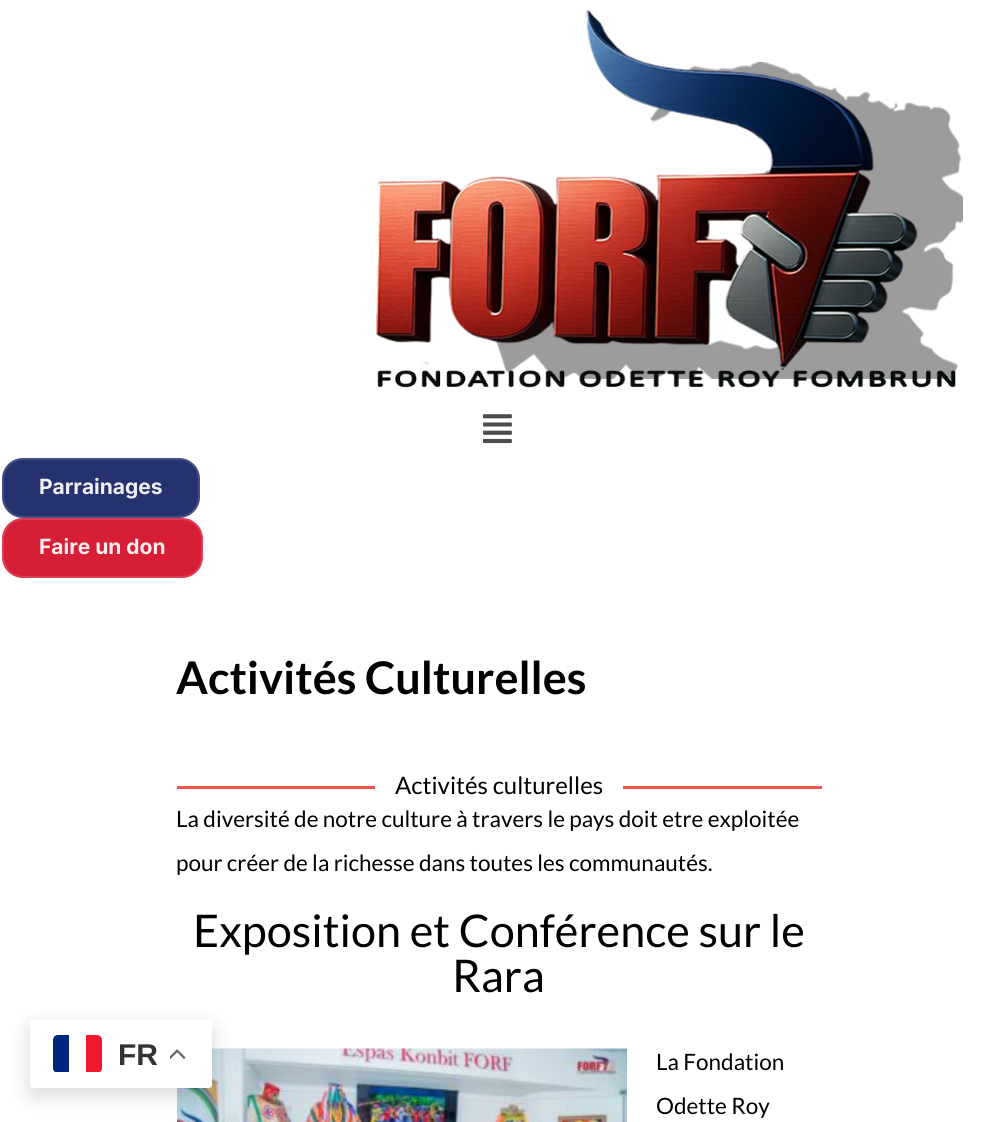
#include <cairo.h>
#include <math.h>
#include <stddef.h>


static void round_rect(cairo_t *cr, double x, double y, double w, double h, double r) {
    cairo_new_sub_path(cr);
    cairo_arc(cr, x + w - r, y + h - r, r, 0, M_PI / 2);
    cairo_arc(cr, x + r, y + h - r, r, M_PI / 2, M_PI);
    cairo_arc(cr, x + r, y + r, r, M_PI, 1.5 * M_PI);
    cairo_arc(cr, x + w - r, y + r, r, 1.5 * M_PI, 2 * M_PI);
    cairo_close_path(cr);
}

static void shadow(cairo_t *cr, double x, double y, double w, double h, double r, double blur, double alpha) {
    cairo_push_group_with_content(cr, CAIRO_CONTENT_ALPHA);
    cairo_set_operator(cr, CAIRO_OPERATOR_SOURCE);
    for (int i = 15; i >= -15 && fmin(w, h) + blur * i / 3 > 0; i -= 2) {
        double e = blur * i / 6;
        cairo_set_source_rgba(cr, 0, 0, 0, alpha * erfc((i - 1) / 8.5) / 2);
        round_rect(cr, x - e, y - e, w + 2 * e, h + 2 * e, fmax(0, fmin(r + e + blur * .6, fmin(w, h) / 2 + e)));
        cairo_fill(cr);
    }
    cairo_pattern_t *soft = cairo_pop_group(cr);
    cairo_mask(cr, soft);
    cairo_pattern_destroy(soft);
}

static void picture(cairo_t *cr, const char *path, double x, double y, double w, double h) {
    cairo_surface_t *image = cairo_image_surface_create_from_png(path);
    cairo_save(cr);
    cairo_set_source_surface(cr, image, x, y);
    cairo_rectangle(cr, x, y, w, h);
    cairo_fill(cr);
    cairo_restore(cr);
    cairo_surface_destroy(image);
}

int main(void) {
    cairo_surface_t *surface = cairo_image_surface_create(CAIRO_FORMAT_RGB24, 997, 1122);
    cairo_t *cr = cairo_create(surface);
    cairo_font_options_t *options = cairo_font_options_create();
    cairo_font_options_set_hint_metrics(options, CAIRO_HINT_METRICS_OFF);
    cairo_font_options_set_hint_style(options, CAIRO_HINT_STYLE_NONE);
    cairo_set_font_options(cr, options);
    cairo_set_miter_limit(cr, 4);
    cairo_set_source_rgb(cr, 1, 1, 1);
    cairo_paint(cr);
    picture(cr, "img1.png", 376, 9, 587, 379);
    picture(cr, "img2.png", 483, 414, 29, 30);
    cairo_set_source_rgb(cr, 0.149, 0.196, 0.431);
    round_rect(cr, 2, 458, 198, 60, 21);
    cairo_fill(cr);
    round_rect(cr, 3, 459, 196, 58, 20);
    cairo_set_source_rgba(cr, 1, 1, 1, 0.14);
    cairo_stroke(cr);
    cairo_select_font_face(cr, "Inter", CAIRO_FONT_SLANT_NORMAL, CAIRO_FONT_WEIGHT_BOLD);
    cairo_set_font_size(cr, 21);
    cairo_set_source_rgb(cr, 0.933, 0.937, 0.953);
    cairo_move_to(cr, 39, 494);
    cairo_show_text(cr, "Parrainages");
    cairo_set_source_rgb(cr, 0.839, 0.118, 0.212);
    round_rect(cr, 2, 518, 201, 60, 21);
    cairo_fill(cr);
    round_rect(cr, 3, 519, 199, 58, 20);
    cairo_set_source_rgba(cr, 1, 1, 1, 0.14);
    cairo_stroke(cr);
    cairo_set_source_rgb(cr, 0.988, 0.929, 0.937);
    cairo_move_to(cr, 39, 554);
    cairo_show_text(cr, "Faire un don");
    cairo_select_font_face(cr, "Lato", CAIRO_FONT_SLANT_NORMAL, CAIRO_FONT_WEIGHT_BOLD);
    cairo_set_font_size(cr, 45);
    cairo_set_source_rgb(cr, 0, 0, 0);
    cairo_move_to(cr, 176, 694);
    cairo_show_text(cr, "Activités Culturelles");
    cairo_set_source_rgb(cr, 0.957, 0.322, 0.302);
    cairo_rectangle(cr, 177, 786, 198, 3);
    cairo_fill(cr);
    cairo_select_font_face(cr, "Lato", CAIRO_FONT_SLANT_NORMAL, CAIRO_FONT_WEIGHT_NORMAL);
    cairo_set_font_size(cr, 24);
    cairo_set_source_rgb(cr, 0, 0, 0);
    cairo_move_to(cr, 395, 794);
    cairo_show_text(cr, "Activités culturelles");
    cairo_set_source_rgb(cr, 0.957, 0.322, 0.302);
    cairo_rectangle(cr, 623, 786, 199, 3);
    cairo_fill(cr);
    cairo_set_font_size(cr, 22.5);
    cairo_set_source_rgb(cr, 0, 0, 0);
    cairo_move_to(cr, 176, 827);
    cairo_show_text(cr, "La diversité de notre culture à travers le pays doit etre exploitée");
    cairo_move_to(cr, 176, 871);
    cairo_show_text(cr, "pour créer de la richesse dans toutes les communautés.");
    cairo_set_font_size(cr, 45);
    cairo_move_to(cr, 193, 947);
    cairo_show_text(cr, "Exposition et Conférence sur le");
    cairo_move_to(cr, 452, 992);
    cairo_show_text(cr, "Rara");
    picture(cr, "img3.png", 177, 1048, 450, 74);
    cairo_set_font_size(cr, 22.5);
    cairo_move_to(cr, 656, 1070);
    cairo_show_text(cr, "La Fondation");
    cairo_move_to(cr, 656, 1114);
    cairo_show_text(cr, "Odette Roy");
    cairo_set_source_rgb(cr, 0, 0, 0);
    shadow(cr, 30, 1028, 182, 67, 3, 11, 0.15);
    cairo_set_source_rgb(cr, 1, 1, 1);
    round_rect(cr, 30, 1020, 182, 68, 3);
    cairo_fill(cr);
    cairo_save(cr);
    round_rect(cr, 53, 1035, 49, 38, 5);
    cairo_clip(cr);
    cairo_set_source_rgb(cr, 0, 0.149, 0.498);
    cairo_new_path(cr);
    cairo_move_to(cr, 58, 1035);
    cairo_line_to(cr, 69, 1035);
    cairo_line_to(cr, 69, 1072);
    cairo_line_to(cr, 53, 1072);
    cairo_line_to(cr, 53, 1040);
    cairo_curve_to(cr, 53, 1037, 55, 1035, 58, 1035);
    cairo_close_path(cr);
    cairo_fill(cr);
    cairo_set_source_rgb(cr, 0.953, 0.094, 0.188);
    cairo_new_path(cr);
    cairo_move_to(cr, 86, 1035);
    cairo_line_to(cr, 97, 1035);
    cairo_curve_to(cr, 100, 1035, 102, 1037, 102, 1040);
    cairo_line_to(cr, 102, 1072);
    cairo_line_to(cr, 86, 1072);
    cairo_close_path(cr);
    cairo_fill(cr);
    cairo_restore(cr);
    cairo_select_font_face(cr, "Liberation Sans", CAIRO_FONT_SLANT_NORMAL, CAIRO_FONT_WEIGHT_BOLD);
    cairo_set_font_size(cr, 30);
    cairo_set_source_rgb(cr, 0.2, 0.2, 0.2);
    cairo_move_to(cr, 118, 1065);
    cairo_show_text(cr, "FR");
    picture(cr, "img4.png", 170, 1049, 16, 10);
    cairo_surface_write_to_png(surface, "page.png");
    cairo_font_options_destroy(options);
    cairo_destroy(cr);
    cairo_surface_destroy(surface);
    return 0;
}
